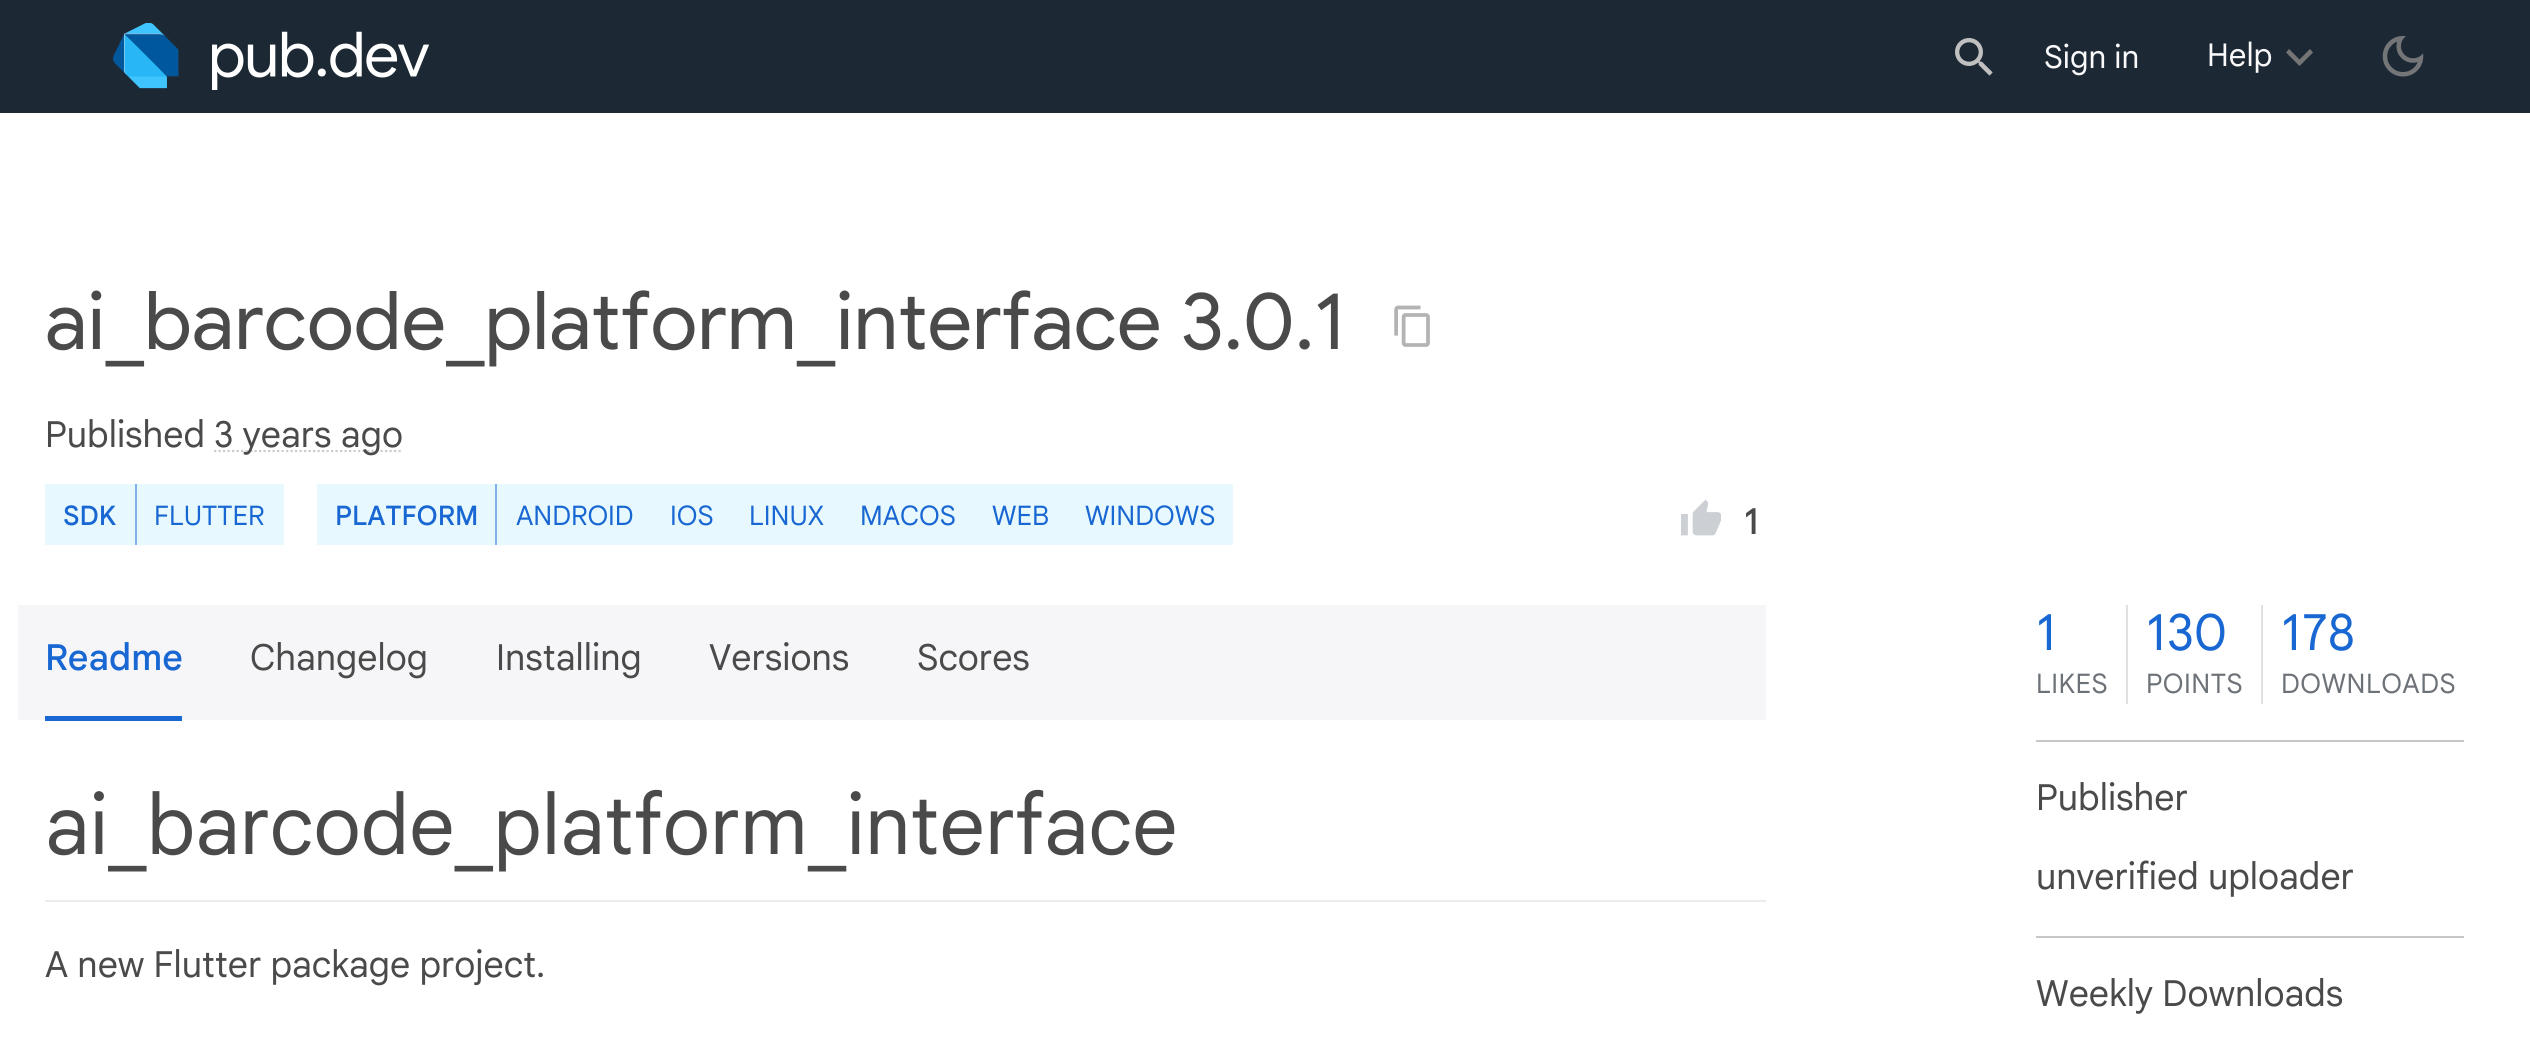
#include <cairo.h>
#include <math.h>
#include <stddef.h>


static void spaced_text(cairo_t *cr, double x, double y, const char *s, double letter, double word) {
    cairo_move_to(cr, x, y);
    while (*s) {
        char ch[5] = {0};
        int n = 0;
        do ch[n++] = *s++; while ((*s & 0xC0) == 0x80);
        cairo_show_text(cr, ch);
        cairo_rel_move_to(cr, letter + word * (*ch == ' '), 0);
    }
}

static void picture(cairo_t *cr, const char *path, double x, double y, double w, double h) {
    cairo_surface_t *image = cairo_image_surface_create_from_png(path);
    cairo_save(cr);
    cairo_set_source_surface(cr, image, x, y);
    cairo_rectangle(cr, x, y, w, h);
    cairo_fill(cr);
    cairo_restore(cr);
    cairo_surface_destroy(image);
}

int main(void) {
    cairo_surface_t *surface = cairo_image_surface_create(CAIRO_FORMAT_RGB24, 2530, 1042);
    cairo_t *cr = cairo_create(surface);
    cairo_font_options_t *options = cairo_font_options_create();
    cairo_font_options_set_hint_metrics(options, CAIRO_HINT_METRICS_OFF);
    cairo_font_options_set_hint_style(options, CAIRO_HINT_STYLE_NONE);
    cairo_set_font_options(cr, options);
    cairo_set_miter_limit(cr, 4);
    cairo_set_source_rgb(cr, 1, 1, 1);
    cairo_paint(cr);
    cairo_set_source_rgb(cr, 0.11, 0.157, 0.204);
    cairo_rectangle(cr, 0, 0, 2530, 113);
    cairo_fill(cr);
    picture(cr, "img1.png", 113, 23, 317, 67);
    picture(cr, "img2.png", 1955, 38, 38, 38);
    cairo_select_font_face(cr, "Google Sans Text", CAIRO_FONT_SLANT_NORMAL, CAIRO_FONT_WEIGHT_NORMAL);
    cairo_set_font_size(cr, 31.5);
    cairo_set_source_rgb(cr, 0.973, 0.976, 0.98);
    cairo_move_to(cr, 2044, 68);
    cairo_show_text(cr, "Sign in");
    cairo_move_to(cr, 2207, 66);
    cairo_show_text(cr, "Help");
    cairo_set_source_rgb(cr, 0.459, 0.459, 0.459);
    cairo_new_path(cr);
    cairo_move_to(cr, 2289, 49);
    cairo_line_to(cr, 2299.5, 59.5);
    cairo_line_to(cr, 2310, 49);
    cairo_line_to(cr, 2313, 52.5);
    cairo_line_to(cr, 2299.5, 66);
    cairo_line_to(cr, 2286, 52.5);
    cairo_close_path(cr);
    cairo_fill(cr);
    picture(cr, "img3.png", 2382, 36, 42, 41);
    cairo_select_font_face(cr, "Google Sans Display", CAIRO_FONT_SLANT_NORMAL, CAIRO_FONT_WEIGHT_NORMAL);
    cairo_set_font_size(cr, 81);
    cairo_set_source_rgb(cr, 0.29, 0.29, 0.29);
    cairo_move_to(cr, 45, 349);
    cairo_show_text(cr, "ai_barcode_platform_interface 3.0.1");
    picture(cr, "img4.png", 1394, 305, 36, 42);
    cairo_select_font_face(cr, "Google Sans Text", CAIRO_FONT_SLANT_NORMAL, CAIRO_FONT_WEIGHT_NORMAL);
    cairo_set_font_size(cr, 36);
    cairo_move_to(cr, 45, 447);
    cairo_show_text(cr, "Published");
    cairo_new_path(cr);
    cairo_move_to(cr, 214, 451);
    cairo_line_to(cr, 403, 451);
    cairo_set_source_rgb(cr, 0.8, 0.8, 0.8);
    cairo_set_line_width(cr, 2.2);
    cairo_set_dash(cr, (double[]){2.25, 2.25}, 2, 0);
    cairo_stroke(cr);
    cairo_set_source_rgb(cr, 0.29, 0.29, 0.29);
    cairo_move_to(cr, 214, 447);
    cairo_show_text(cr, "3 years ago");
    cairo_set_source_rgb(cr, 0.906, 0.973, 1);
    cairo_rectangle(cr, 45, 484, 239, 61);
    cairo_fill(cr);
    cairo_set_source_rgb(cr, 0.502, 0.69, 0.914);
    cairo_rectangle(cr, 135, 484, 2, 61);
    cairo_fill(cr);
    cairo_select_font_face(cr, "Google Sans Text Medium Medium", CAIRO_FONT_SLANT_NORMAL, CAIRO_FONT_WEIGHT_NORMAL);
    cairo_set_font_size(cr, 27);
    cairo_set_source_rgb(cr, 0.098, 0.404, 0.824);
    cairo_move_to(cr, 63, 525);
    cairo_show_text(cr, "SDK");
    cairo_select_font_face(cr, "Google Sans Text", CAIRO_FONT_SLANT_NORMAL, CAIRO_FONT_WEIGHT_NORMAL);
    cairo_move_to(cr, 154, 525);
    cairo_show_text(cr, "FLUTTER");
    cairo_set_source_rgb(cr, 0.906, 0.973, 1);
    cairo_rectangle(cr, 317, 484, 916, 61);
    cairo_fill(cr);
    cairo_set_source_rgb(cr, 0.502, 0.69, 0.914);
    cairo_rectangle(cr, 495, 484, 2, 61);
    cairo_fill(cr);
    cairo_select_font_face(cr, "Google Sans Text Medium Medium", CAIRO_FONT_SLANT_NORMAL, CAIRO_FONT_WEIGHT_NORMAL);
    cairo_set_source_rgb(cr, 0.098, 0.404, 0.824);
    cairo_move_to(cr, 335, 525);
    cairo_show_text(cr, "PLATFORM");
    cairo_select_font_face(cr, "Google Sans Text", CAIRO_FONT_SLANT_NORMAL, CAIRO_FONT_WEIGHT_NORMAL);
    cairo_move_to(cr, 516, 525);
    cairo_show_text(cr, "ANDROID");
    cairo_move_to(cr, 670, 525);
    cairo_show_text(cr, "IOS");
    cairo_move_to(cr, 749, 525);
    cairo_show_text(cr, "LINUX");
    cairo_move_to(cr, 860, 525);
    cairo_show_text(cr, "MACOS");
    cairo_move_to(cr, 992, 525);
    cairo_show_text(cr, "WEB");
    cairo_move_to(cr, 1085, 525);
    cairo_show_text(cr, "WINDOWS");
    picture(cr, "img5.png", 1681, 499, 40, 37);
    cairo_select_font_face(cr, "Google Sans Text Medium Medium", CAIRO_FONT_SLANT_NORMAL, CAIRO_FONT_WEIGHT_NORMAL);
    cairo_set_font_size(cr, 36);
    cairo_set_source_rgb(cr, 0.29, 0.29, 0.29);
    cairo_move_to(cr, 1744, 534);
    cairo_show_text(cr, "1");
    cairo_set_source_rgb(cr, 0.961, 0.961, 0.969);
    cairo_rectangle(cr, 18, 605, 1748, 115);
    cairo_fill(cr);
    cairo_set_source_rgb(cr, 0.098, 0.404, 0.824);
    cairo_rectangle(cr, 45, 716, 137, 5);
    cairo_fill(cr);
    cairo_move_to(cr, 45, 670);
    cairo_show_text(cr, "Readme");
    cairo_select_font_face(cr, "Google Sans Text", CAIRO_FONT_SLANT_NORMAL, CAIRO_FONT_WEIGHT_NORMAL);
    cairo_set_source_rgb(cr, 0.29, 0.29, 0.29);
    cairo_move_to(cr, 250, 670);
    cairo_show_text(cr, "Changelog");
    cairo_move_to(cr, 496, 670);
    cairo_show_text(cr, "Installing");
    cairo_move_to(cr, 709, 670);
    cairo_show_text(cr, "Versions");
    cairo_move_to(cr, 917, 670);
    cairo_show_text(cr, "Scores");
    cairo_set_source_rgb(cr, 0.918, 0.925, 0.937);
    cairo_rectangle(cr, 45, 900, 1721, 2);
    cairo_fill(cr);
    cairo_set_font_size(cr, 81);
    cairo_set_source_rgb(cr, 0.29, 0.29, 0.29);
    cairo_move_to(cr, 45, 854);
    cairo_show_text(cr, "ai_barcode_platform_interface");
    cairo_set_font_size(cr, 36);
    cairo_move_to(cr, 45, 977);
    cairo_show_text(cr, "A new Flutter package project.");
    cairo_set_source_rgb(cr, 0.878, 0.878, 0.878);
    cairo_rectangle(cr, 2126, 605, 2, 99);
    cairo_fill(cr);
    cairo_set_font_size(cr, 50);
    cairo_set_source_rgb(cr, 0.098, 0.404, 0.824);
    cairo_move_to(cr, 2036, 650);
    cairo_show_text(cr, "1");
    cairo_set_font_size(cr, 27);
    cairo_set_source_rgb(cr, 0.427, 0.447, 0.471);
    spaced_text(cr, 2036, 693, "LIKES", 0.5, 0);
    cairo_set_source_rgb(cr, 0.878, 0.878, 0.878);
    cairo_rectangle(cr, 2261, 605, 2, 99);
    cairo_fill(cr);
    cairo_set_font_size(cr, 50);
    cairo_set_source_rgb(cr, 0.098, 0.404, 0.824);
    cairo_move_to(cr, 2146, 650);
    cairo_show_text(cr, "130");
    cairo_set_font_size(cr, 27);
    cairo_set_source_rgb(cr, 0.427, 0.447, 0.471);
    spaced_text(cr, 2146, 693, "POINTS", 0.5, 0);
    cairo_set_font_size(cr, 50);
    cairo_set_source_rgb(cr, 0.098, 0.404, 0.824);
    cairo_move_to(cr, 2281, 650);
    cairo_show_text(cr, "178");
    cairo_set_font_size(cr, 27);
    cairo_set_source_rgb(cr, 0.427, 0.447, 0.471);
    spaced_text(cr, 2281, 693, "DOWNLOADS", 0.5, 0);
    cairo_set_source_rgb(cr, 0.784, 0.784, 0.792);
    cairo_rectangle(cr, 2036, 740, 428, 2);
    cairo_fill(cr);
    cairo_set_font_size(cr, 36);
    cairo_set_source_rgb(cr, 0.29, 0.29, 0.29);
    cairo_move_to(cr, 2036, 810);
    cairo_show_text(cr, "Publisher");
    cairo_move_to(cr, 2036, 889);
    cairo_show_text(cr, "unverified uploader");
    cairo_set_source_rgb(cr, 0.784, 0.784, 0.792);
    cairo_rectangle(cr, 2036, 936, 428, 2);
    cairo_fill(cr);
    cairo_set_source_rgb(cr, 0.29, 0.29, 0.29);
    cairo_move_to(cr, 2036, 1006);
    cairo_show_text(cr, "Weekly Downloads");
    cairo_surface_write_to_png(surface, "page.png");
    cairo_font_options_destroy(options);
    cairo_destroy(cr);
    cairo_surface_destroy(surface);
    return 0;
}
